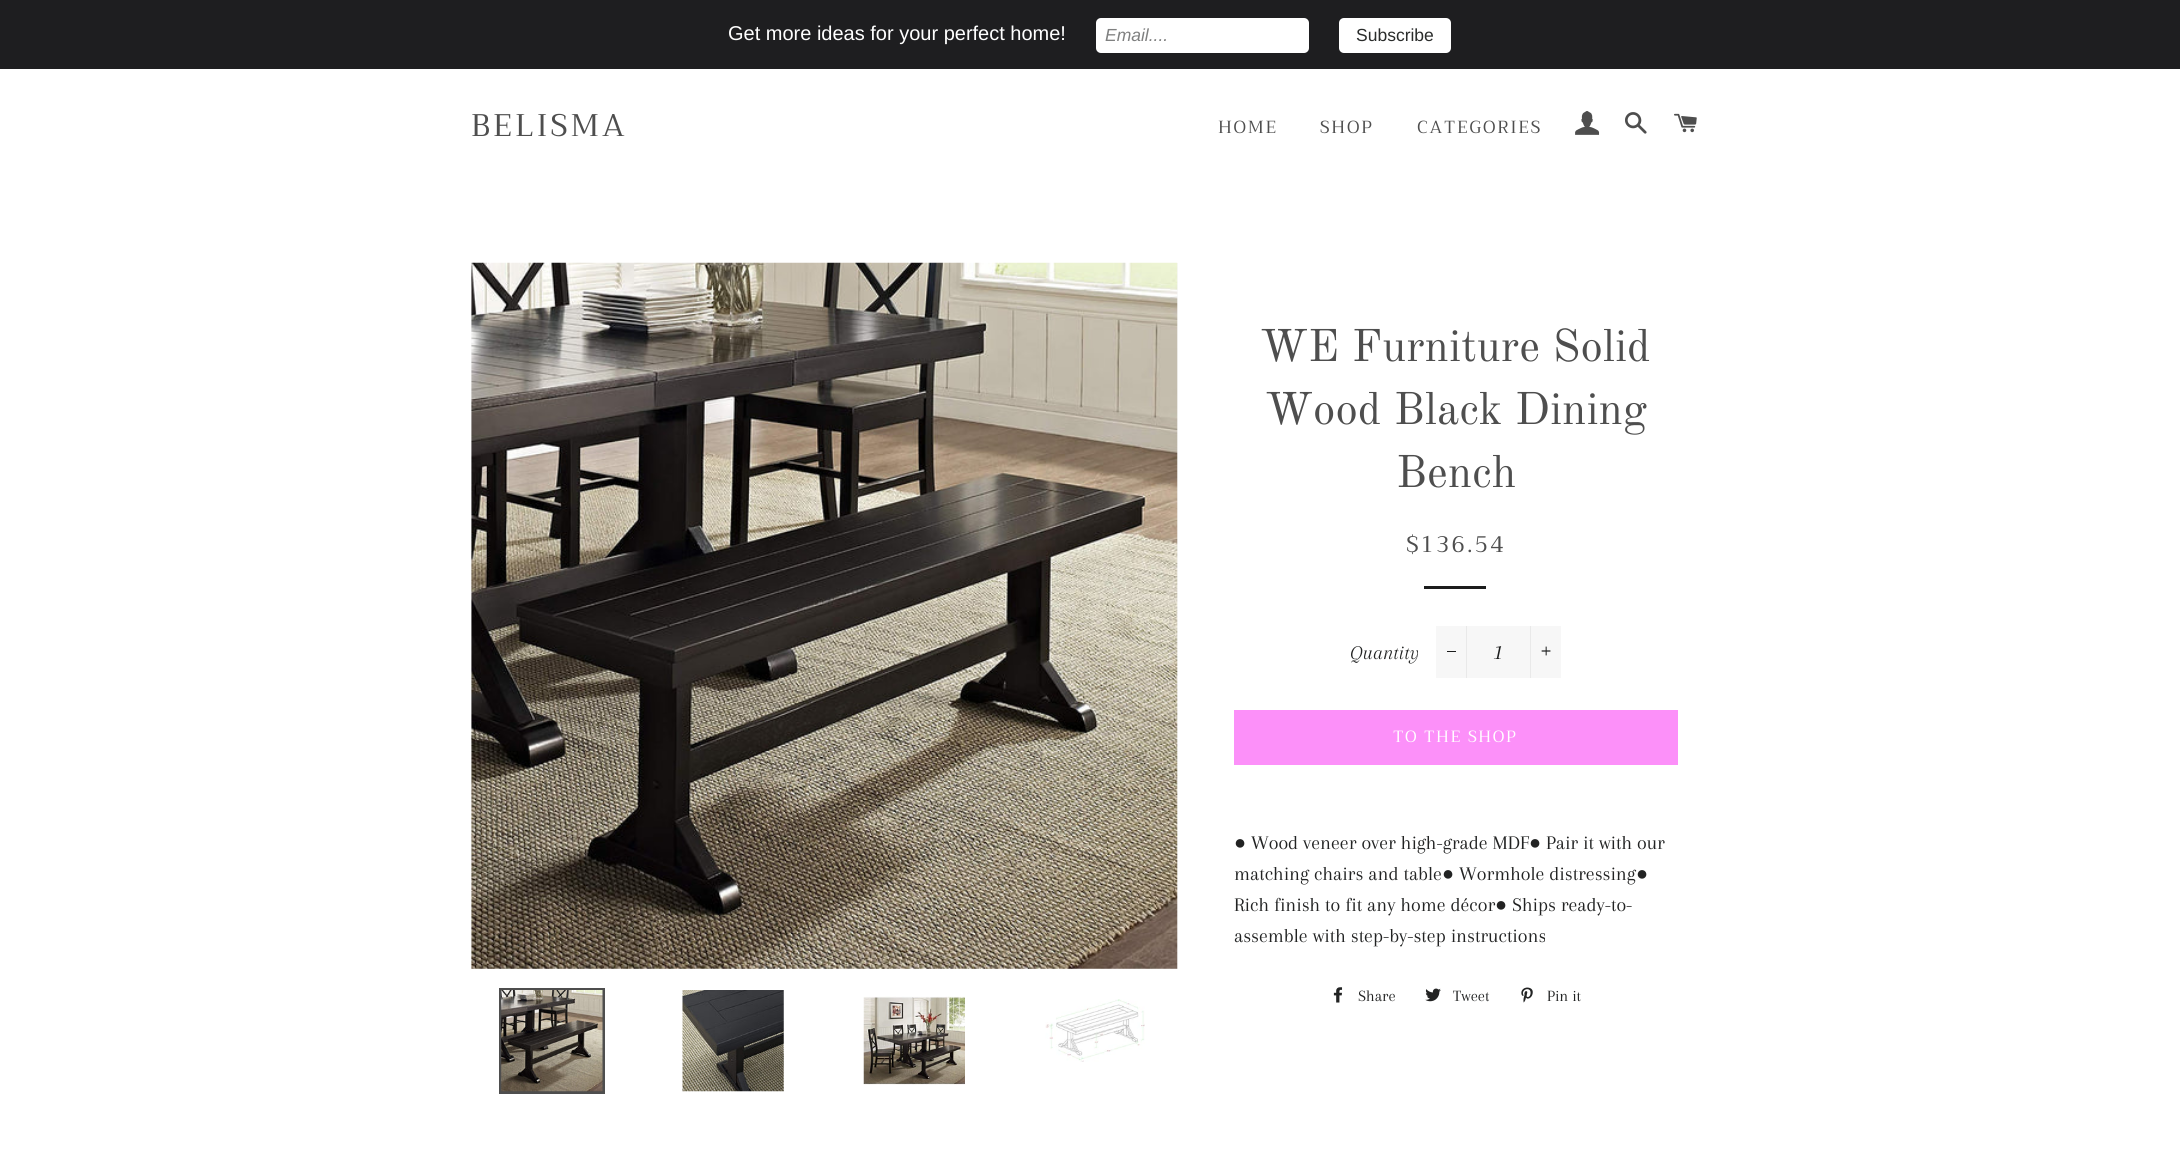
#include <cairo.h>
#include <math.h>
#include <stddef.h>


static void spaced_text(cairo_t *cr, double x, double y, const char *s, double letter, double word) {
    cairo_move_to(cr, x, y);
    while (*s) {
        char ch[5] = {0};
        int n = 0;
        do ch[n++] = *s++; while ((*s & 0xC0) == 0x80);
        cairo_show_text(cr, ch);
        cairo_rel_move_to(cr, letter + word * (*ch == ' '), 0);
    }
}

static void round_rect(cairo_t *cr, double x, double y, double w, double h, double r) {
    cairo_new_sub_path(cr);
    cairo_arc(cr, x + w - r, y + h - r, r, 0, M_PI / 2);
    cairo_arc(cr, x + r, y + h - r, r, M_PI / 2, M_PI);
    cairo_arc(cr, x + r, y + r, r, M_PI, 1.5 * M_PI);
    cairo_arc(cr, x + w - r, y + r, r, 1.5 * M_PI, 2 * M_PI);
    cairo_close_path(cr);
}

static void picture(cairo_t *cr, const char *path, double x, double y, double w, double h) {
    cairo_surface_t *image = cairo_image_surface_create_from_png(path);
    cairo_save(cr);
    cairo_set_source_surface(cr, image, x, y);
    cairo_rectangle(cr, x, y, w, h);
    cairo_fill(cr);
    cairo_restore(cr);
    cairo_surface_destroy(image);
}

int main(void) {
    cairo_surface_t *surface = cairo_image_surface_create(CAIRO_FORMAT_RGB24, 2180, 1161);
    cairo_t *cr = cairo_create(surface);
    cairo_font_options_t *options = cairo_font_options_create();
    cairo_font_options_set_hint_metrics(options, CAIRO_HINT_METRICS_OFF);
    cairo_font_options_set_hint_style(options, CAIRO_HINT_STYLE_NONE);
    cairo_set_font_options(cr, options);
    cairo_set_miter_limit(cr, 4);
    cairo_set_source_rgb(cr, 1, 1, 1);
    cairo_paint(cr);
    cairo_set_source_rgb(cr, 0.118, 0.118, 0.125);
    cairo_rectangle(cr, 0, 0, 2180, 69);
    cairo_fill(cr);
    cairo_select_font_face(cr, "Liberation Sans", CAIRO_FONT_SLANT_NORMAL, CAIRO_FONT_WEIGHT_NORMAL);
    cairo_set_font_size(cr, 20);
    cairo_set_source_rgb(cr, 1, 1, 1);
    cairo_move_to(cr, 728, 40);
    cairo_show_text(cr, "Get more ideas for your perfect home!");
    round_rect(cr, 1096, 18, 213, 35, 5);
    cairo_fill(cr);
    cairo_select_font_face(cr, "Liberation Sans", CAIRO_FONT_SLANT_ITALIC, CAIRO_FONT_WEIGHT_NORMAL);
    cairo_set_font_size(cr, 17.5);
    cairo_set_source_rgb(cr, 0.498, 0.502, 0.502);
    cairo_move_to(cr, 1105, 41);
    cairo_show_text(cr, "Email....");
    cairo_set_source_rgb(cr, 1, 1, 1);
    round_rect(cr, 1339, 18, 112, 35, 5);
    cairo_fill(cr);
    cairo_select_font_face(cr, "Liberation Sans", CAIRO_FONT_SLANT_NORMAL, CAIRO_FONT_WEIGHT_NORMAL);
    cairo_set_source_rgb(cr, 0.165, 0.173, 0.169);
    cairo_move_to(cr, 1356, 41);
    cairo_show_text(cr, "Subscribe");
    cairo_select_font_face(cr, "Trirong", CAIRO_FONT_SLANT_NORMAL, CAIRO_FONT_WEIGHT_NORMAL);
    cairo_set_font_size(cr, 31.25);
    cairo_set_source_rgb(cr, 0.306, 0.306, 0.306);
    spaced_text(cr, 471, 136, "BELISMA", 3, 0);
    cairo_set_font_size(cr, 17.5);
    spaced_text(cr, 1218, 133, "HOME", 1.75, 0);
    spaced_text(cr, 1320, 133, "SHOP", 1.75, 0);
    spaced_text(cr, 1417, 133, "CATEGORIES", 1.75, 0);
    picture(cr, "img1.png", 1575, 111, 25, 24);
    picture(cr, "img2.png", 1625, 112, 22, 22);
    picture(cr, "img3.png", 1674, 113, 23, 20);
    cairo_set_source_rgb(cr, 0.969, 0.969, 0.969);
    cairo_rectangle(cr, 471, 263, 707, 706);
    cairo_fill(cr);
    picture(cr, "img4.png", 471, 262, 707, 707);
    cairo_rectangle(cr, 500.5, 989.5, 103, 103);
    cairo_set_source_rgb(cr, 0.306, 0.306, 0.306);
    cairo_set_line_width(cr, 3);
    cairo_stroke(cr);
    picture(cr, "img5.png", 501, 990, 102, 102);
    picture(cr, "img6.png", 682, 990, 102, 102);
    picture(cr, "img7.png", 863, 996, 102, 89);
    picture(cr, "img8.png", 1045, 999, 100, 63);
    cairo_select_font_face(cr, "Old Standard TT", CAIRO_FONT_SLANT_NORMAL, CAIRO_FONT_WEIGHT_NORMAL);
    cairo_set_font_size(cr, 45);
    cairo_move_to(cr, 1260, 361);
    cairo_show_text(cr, "WE Furniture Solid");
    cairo_move_to(cr, 1265, 424);
    cairo_show_text(cr, "Wood Black Dining");
    cairo_move_to(cr, 1396, 487);
    cairo_show_text(cr, "Bench");
    cairo_select_font_face(cr, "Trirong", CAIRO_FONT_SLANT_NORMAL, CAIRO_FONT_WEIGHT_NORMAL);
    cairo_set_font_size(cr, 22.5);
    spaced_text(cr, 1406, 552, "$136.54", 2.25, 0);
    cairo_set_source_rgb(cr, 0.11, 0.114, 0.114);
    cairo_rectangle(cr, 1424, 586, 62, 3);
    cairo_fill(cr);
    cairo_select_font_face(cr, "Arapey", CAIRO_FONT_SLANT_ITALIC, CAIRO_FONT_WEIGHT_NORMAL);
    cairo_set_font_size(cr, 20);
    cairo_set_source_rgb(cr, 0.133, 0.137, 0.137);
    cairo_move_to(cr, 1350, 659);
    cairo_show_text(cr, "Quantity");
    cairo_set_source_rgb(cr, 0.965, 0.965, 0.965);
    cairo_rectangle(cr, 1436, 626, 125, 52);
    cairo_fill(cr);
    cairo_set_source_rgb(cr, 0.914, 0.914, 0.914);
    cairo_rectangle(cr, 1466, 626, 1, 52);
    cairo_fill(cr);
    cairo_set_source_rgb(cr, 0.11, 0.114, 0.114);
    cairo_rectangle(cr, 1447, 651, 9, 1);
    cairo_fill(cr);
    cairo_set_font_size(cr, 22.5);
    cairo_move_to(cr, 1495, 659);
    cairo_show_text(cr, "1");
    cairo_set_source_rgb(cr, 0.914, 0.914, 0.914);
    cairo_rectangle(cr, 1530, 626, 1, 52);
    cairo_fill(cr);
    picture(cr, "img9.png", 1541, 646, 10, 10);
    cairo_set_source_rgb(cr, 0.988, 0.565, 0.976);
    cairo_rectangle(cr, 1234, 710, 444, 55);
    cairo_fill(cr);
    cairo_select_font_face(cr, "Trirong", CAIRO_FONT_SLANT_NORMAL, CAIRO_FONT_WEIGHT_NORMAL);
    cairo_set_font_size(cr, 16.25);
    cairo_set_source_rgb(cr, 1, 1, 1);
    spaced_text(cr, 1393, 742, "TO THE SHOP", 1.6, 0);
    cairo_select_font_face(cr, "Liberation Serif", CAIRO_FONT_SLANT_NORMAL, CAIRO_FONT_WEIGHT_NORMAL);
    cairo_set_font_size(cr, 20);
    cairo_set_source_rgb(cr, 0.133, 0.137, 0.137);
    cairo_move_to(cr, 1234, 849);
    cairo_show_text(cr, "●");
    cairo_select_font_face(cr, "Arapey", CAIRO_FONT_SLANT_NORMAL, CAIRO_FONT_WEIGHT_NORMAL);
    cairo_move_to(cr, 1251, 849);
    cairo_show_text(cr, "Wood veneer over high-grade MDF");
    cairo_select_font_face(cr, "Liberation Serif", CAIRO_FONT_SLANT_NORMAL, CAIRO_FONT_WEIGHT_NORMAL);
    cairo_move_to(cr, 1529, 849);
    cairo_show_text(cr, "●");
    cairo_select_font_face(cr, "Arapey", CAIRO_FONT_SLANT_NORMAL, CAIRO_FONT_WEIGHT_NORMAL);
    cairo_move_to(cr, 1546, 849);
    cairo_show_text(cr, "Pair it with our");
    cairo_move_to(cr, 1234, 880);
    cairo_show_text(cr, "matching chairs and table");
    cairo_select_font_face(cr, "Liberation Serif", CAIRO_FONT_SLANT_NORMAL, CAIRO_FONT_WEIGHT_NORMAL);
    cairo_move_to(cr, 1442, 880);
    cairo_show_text(cr, "●");
    cairo_select_font_face(cr, "Arapey", CAIRO_FONT_SLANT_NORMAL, CAIRO_FONT_WEIGHT_NORMAL);
    cairo_move_to(cr, 1459, 880);
    cairo_show_text(cr, "Wormhole distressing");
    cairo_select_font_face(cr, "Liberation Serif", CAIRO_FONT_SLANT_NORMAL, CAIRO_FONT_WEIGHT_NORMAL);
    cairo_move_to(cr, 1636, 880);
    cairo_show_text(cr, "●");
    cairo_select_font_face(cr, "Arapey", CAIRO_FONT_SLANT_NORMAL, CAIRO_FONT_WEIGHT_NORMAL);
    cairo_move_to(cr, 1234, 911);
    cairo_show_text(cr, "Rich finish to fit any home décor");
    cairo_select_font_face(cr, "Liberation Serif", CAIRO_FONT_SLANT_NORMAL, CAIRO_FONT_WEIGHT_NORMAL);
    cairo_move_to(cr, 1495, 911);
    cairo_show_text(cr, "●");
    cairo_select_font_face(cr, "Arapey", CAIRO_FONT_SLANT_NORMAL, CAIRO_FONT_WEIGHT_NORMAL);
    cairo_move_to(cr, 1512, 911);
    cairo_show_text(cr, "Ships ready-to-");
    cairo_move_to(cr, 1234, 942);
    cairo_show_text(cr, "assemble with step-by-step instructions");
    picture(cr, "img10.png", 1333, 987, 10, 16);
    cairo_set_font_size(cr, 16.25);
    cairo_move_to(cr, 1358, 1001);
    cairo_show_text(cr, "Share");
    picture(cr, "img11.png", 1425, 988, 16, 14);
    cairo_move_to(cr, 1453, 1001);
    cairo_show_text(cr, "Tweet");
    picture(cr, "img12.png", 1521, 987, 12, 16);
    cairo_move_to(cr, 1547, 1001);
    cairo_show_text(cr, "Pin it");
    cairo_surface_write_to_png(surface, "page.png");
    cairo_font_options_destroy(options);
    cairo_destroy(cr);
    cairo_surface_destroy(surface);
    return 0;
}
